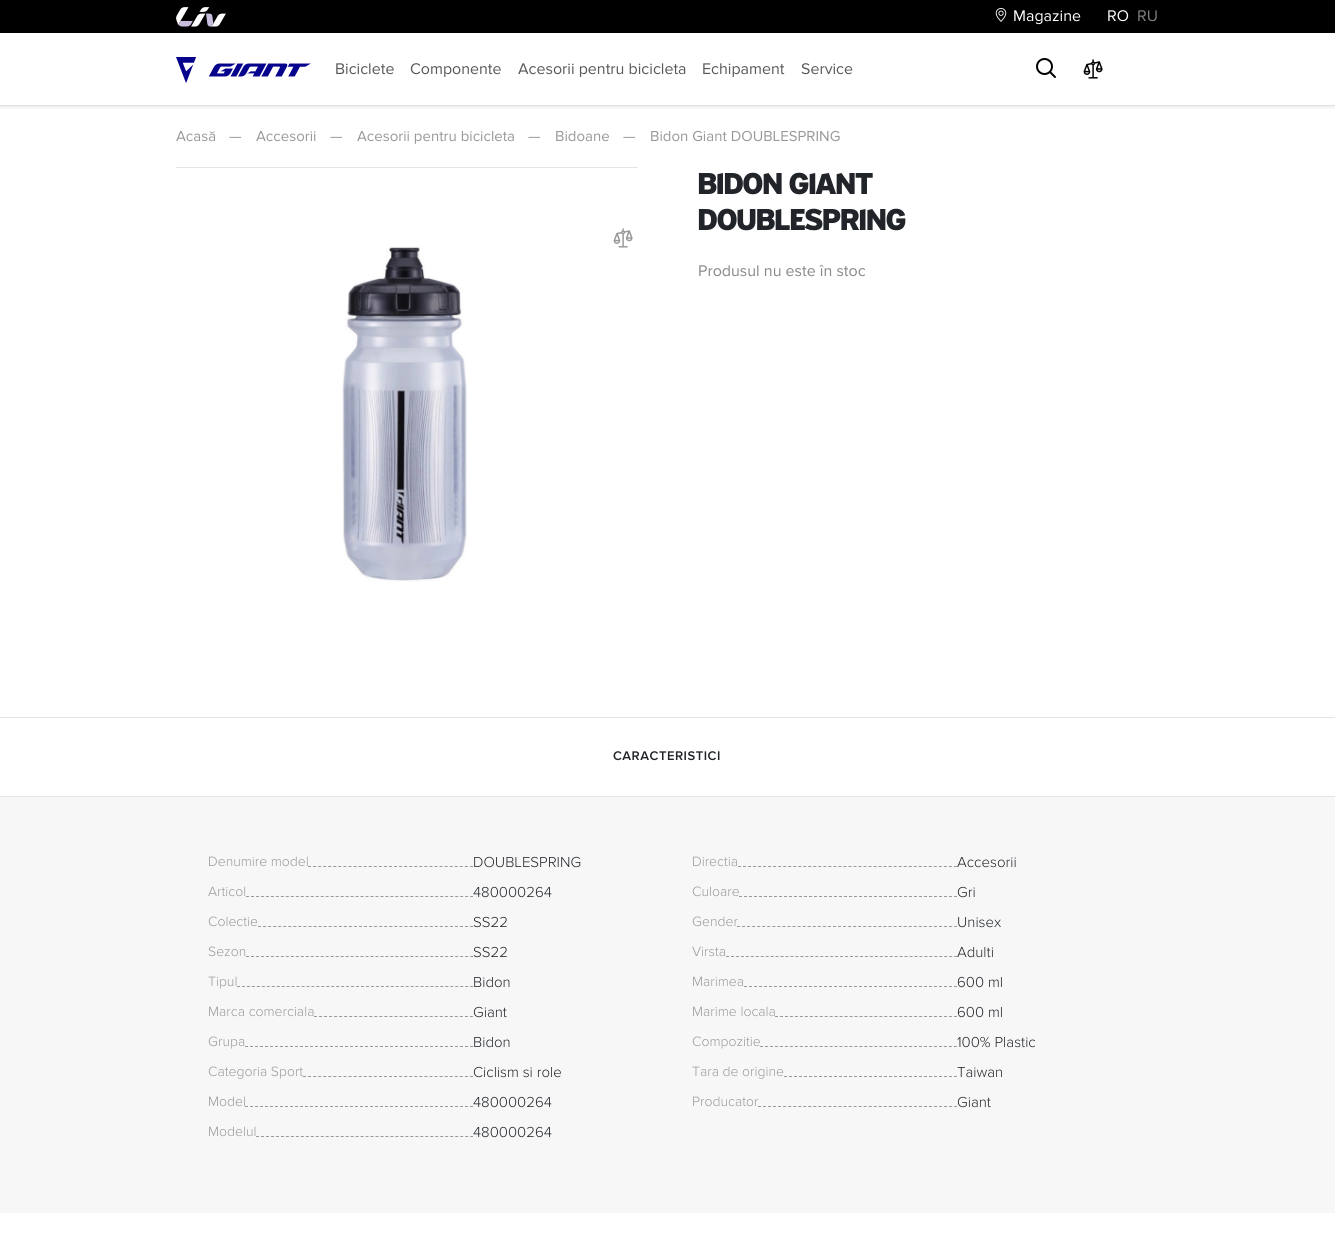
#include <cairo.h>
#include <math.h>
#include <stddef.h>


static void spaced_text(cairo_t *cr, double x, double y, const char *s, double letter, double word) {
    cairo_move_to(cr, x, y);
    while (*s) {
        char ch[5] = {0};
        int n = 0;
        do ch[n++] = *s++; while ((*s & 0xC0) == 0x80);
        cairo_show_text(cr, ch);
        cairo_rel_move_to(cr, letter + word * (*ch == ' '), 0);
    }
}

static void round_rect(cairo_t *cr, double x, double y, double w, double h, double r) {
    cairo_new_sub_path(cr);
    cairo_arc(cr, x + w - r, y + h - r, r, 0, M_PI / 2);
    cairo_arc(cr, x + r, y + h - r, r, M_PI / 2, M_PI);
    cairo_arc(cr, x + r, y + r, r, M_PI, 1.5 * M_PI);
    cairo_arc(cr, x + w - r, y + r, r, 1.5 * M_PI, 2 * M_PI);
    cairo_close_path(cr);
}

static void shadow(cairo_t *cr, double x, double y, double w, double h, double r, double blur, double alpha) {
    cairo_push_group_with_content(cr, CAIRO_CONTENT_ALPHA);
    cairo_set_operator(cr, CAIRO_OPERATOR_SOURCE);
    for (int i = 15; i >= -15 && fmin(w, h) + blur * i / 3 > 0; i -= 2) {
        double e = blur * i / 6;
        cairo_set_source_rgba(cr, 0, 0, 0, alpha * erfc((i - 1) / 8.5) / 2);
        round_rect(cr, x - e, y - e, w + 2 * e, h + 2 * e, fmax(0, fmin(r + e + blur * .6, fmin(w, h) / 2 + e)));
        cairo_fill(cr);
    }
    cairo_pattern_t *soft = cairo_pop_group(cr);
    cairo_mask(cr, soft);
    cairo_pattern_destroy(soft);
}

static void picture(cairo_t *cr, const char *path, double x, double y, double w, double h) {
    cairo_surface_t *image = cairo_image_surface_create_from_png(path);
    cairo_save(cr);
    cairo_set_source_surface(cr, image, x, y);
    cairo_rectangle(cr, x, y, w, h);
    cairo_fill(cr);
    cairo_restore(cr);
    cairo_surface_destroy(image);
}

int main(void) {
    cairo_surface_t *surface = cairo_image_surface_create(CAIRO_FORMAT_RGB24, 1335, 1254);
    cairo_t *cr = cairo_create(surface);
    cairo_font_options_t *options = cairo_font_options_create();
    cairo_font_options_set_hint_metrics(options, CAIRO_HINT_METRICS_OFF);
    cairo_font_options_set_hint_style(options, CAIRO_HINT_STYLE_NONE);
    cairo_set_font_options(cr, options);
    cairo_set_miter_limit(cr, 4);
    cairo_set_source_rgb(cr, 1, 1, 1);
    cairo_paint(cr);
    cairo_set_source_rgb(cr, 0, 0, 0);
    cairo_rectangle(cr, 0, 0, 1335, 33);
    cairo_fill(cr);
    picture(cr, "img1.png", 176, 7, 50, 20);
    picture(cr, "img2.png", 995, 8, 12, 14);
    cairo_select_font_face(cr, "Proxima Nova", CAIRO_FONT_SLANT_NORMAL, CAIRO_FONT_WEIGHT_NORMAL);
    cairo_set_font_size(cr, 16);
    cairo_set_source_rgb(cr, 1, 1, 1);
    cairo_move_to(cr, 1013, 21);
    cairo_show_text(cr, "Magazine");
    cairo_move_to(cr, 1107, 21);
    cairo_show_text(cr, "RO");
    cairo_set_source_rgb(cr, 0.502, 0.502, 0.502);
    cairo_move_to(cr, 1137, 21);
    cairo_show_text(cr, "RU");
    cairo_save(cr);
    cairo_rectangle(cr, 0, 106, 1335, 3);
    cairo_clip(cr);
    cairo_set_source_rgb(cr, 0, 0, 0);
    shadow(cr, 0, 35, 1335, 73, 0, 2, 0.07);
    cairo_restore(cr);
    cairo_set_source_rgb(cr, 0.871, 0.886, 0.902);
    cairo_rectangle(cr, 0, 105, 1335, 1);
    cairo_fill(cr);
    picture(cr, "img3.png", 176, 57, 135, 26);
    cairo_set_source_rgb(cr, 0.349, 0.349, 0.349);
    cairo_move_to(cr, 335, 74);
    cairo_show_text(cr, "Biciclete");
    cairo_move_to(cr, 410, 74);
    cairo_show_text(cr, "Componente");
    cairo_move_to(cr, 518, 74);
    cairo_show_text(cr, "Acesorii pentru bicicleta");
    cairo_move_to(cr, 702, 74);
    cairo_show_text(cr, "Echipament");
    cairo_move_to(cr, 801, 74);
    cairo_show_text(cr, "Service");
    cairo_new_path(cr);
    cairo_arc(cr, 1044.5, 66.5, 7.5, 0, 2 * M_PI);
    cairo_set_source_rgb(cr, 0, 0, 0);
    cairo_stroke(cr);
    cairo_new_path(cr);
    cairo_move_to(cr, 1055, 77);
    cairo_line_to(cr, 1050, 72);
    cairo_set_line_cap(cr, CAIRO_LINE_CAP_ROUND);
    cairo_stroke(cr);
    picture(cr, "img4.png", 1083, 59, 20, 20);
    cairo_set_font_size(cr, 15);
    cairo_set_source_rgb(cr, 0.6, 0.6, 0.6);
    cairo_move_to(cr, 176, 141);
    cairo_show_text(cr, "Acasă");
    cairo_move_to(cr, 229, 141);
    cairo_show_text(cr, "—");
    cairo_move_to(cr, 256, 141);
    cairo_show_text(cr, "Accesorii");
    cairo_move_to(cr, 330, 141);
    cairo_show_text(cr, "—");
    cairo_move_to(cr, 357, 141);
    cairo_show_text(cr, "Acesorii pentru bicicleta");
    cairo_move_to(cr, 528, 141);
    cairo_show_text(cr, "—");
    cairo_move_to(cr, 555, 141);
    cairo_show_text(cr, "Bidoane");
    cairo_move_to(cr, 623, 141);
    cairo_show_text(cr, "—");
    cairo_move_to(cr, 650, 141);
    cairo_show_text(cr, "Bidon Giant DOUBLESPRING");
    cairo_set_source_rgb(cr, 0.894, 0.898, 0.906);
    cairo_rectangle(cr, 176, 167, 462, 1);
    cairo_fill(cr);
    picture(cr, "img5.png", 613, 228, 20, 20);
    picture(cr, "img6.png", 342, 246, 125, 336);
    cairo_select_font_face(cr, "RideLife", CAIRO_FONT_SLANT_NORMAL, CAIRO_FONT_WEIGHT_NORMAL);
    cairo_set_font_size(cr, 30);
    cairo_set_source_rgb(cr, 0.129, 0.145, 0.161);
    cairo_move_to(cr, 698, 194);
    cairo_show_text(cr, "Bidon Giant");
    cairo_move_to(cr, 698, 230);
    cairo_show_text(cr, "DOUBLESPRING");
    cairo_select_font_face(cr, "Proxima Nova", CAIRO_FONT_SLANT_NORMAL, CAIRO_FONT_WEIGHT_NORMAL);
    cairo_set_font_size(cr, 16);
    cairo_set_source_rgb(cr, 0.533, 0.533, 0.533);
    cairo_move_to(cr, 698, 276);
    cairo_show_text(cr, "Produsul nu este în stoc");
    cairo_set_source_rgb(cr, 0.894, 0.898, 0.906);
    cairo_rectangle(cr, 0, 717, 1335, 1);
    cairo_fill(cr);
    cairo_rectangle(cr, 0, 796, 1335, 1);
    cairo_fill(cr);
    cairo_select_font_face(cr, "Proxima Nova SemiBold", CAIRO_FONT_SLANT_NORMAL, CAIRO_FONT_WEIGHT_NORMAL);
    cairo_set_font_size(cr, 13);
    cairo_set_source_rgb(cr, 0.129, 0.145, 0.161);
    spaced_text(cr, 613, 760, "CARACTERISTICI", 0.5, 0);
    cairo_set_source_rgb(cr, 0.965, 0.965, 0.969);
    cairo_rectangle(cr, 0, 797, 1335, 416);
    cairo_fill(cr);
    cairo_select_font_face(cr, "Proxima Nova Light", CAIRO_FONT_SLANT_NORMAL, CAIRO_FONT_WEIGHT_NORMAL);
    cairo_set_font_size(cr, 14);
    cairo_set_source_rgb(cr, 0.6, 0.6, 0.6);
    cairo_move_to(cr, 208, 866);
    cairo_show_text(cr, "Denumire model");
    cairo_new_path(cr);
    cairo_move_to(cr, 308, 866.5);
    cairo_line_to(cr, 473, 866.5);
    cairo_set_line_width(cr, 1);
    cairo_set_line_cap(cr, CAIRO_LINE_CAP_BUTT);
    cairo_set_dash(cr, (double[]){3, 2.06}, 2, 0);
    cairo_stroke(cr);
    cairo_set_font_size(cr, 15);
    cairo_set_source_rgb(cr, 0.129, 0.145, 0.161);
    cairo_move_to(cr, 473, 867);
    cairo_show_text(cr, "DOUBLESPRING");
    cairo_set_font_size(cr, 14);
    cairo_set_source_rgb(cr, 0.6, 0.6, 0.6);
    cairo_move_to(cr, 692, 866);
    cairo_show_text(cr, "Directia");
    cairo_new_path(cr);
    cairo_move_to(cr, 738, 866.5);
    cairo_line_to(cr, 957, 866.5);
    cairo_set_dash(cr, (double[]){3, 2.02}, 2, 0);
    cairo_stroke(cr);
    cairo_set_font_size(cr, 15);
    cairo_set_source_rgb(cr, 0.129, 0.145, 0.161);
    cairo_move_to(cr, 957, 867);
    cairo_show_text(cr, "Accesorii");
    cairo_set_font_size(cr, 14);
    cairo_set_source_rgb(cr, 0.6, 0.6, 0.6);
    cairo_move_to(cr, 208, 896);
    cairo_show_text(cr, "Articol");
    cairo_new_path(cr);
    cairo_move_to(cr, 246, 896.5);
    cairo_line_to(cr, 473, 896.5);
    cairo_set_dash(cr, (double[]){3, 1.98}, 2, 0);
    cairo_stroke(cr);
    cairo_set_font_size(cr, 15);
    cairo_set_source_rgb(cr, 0.129, 0.145, 0.161);
    cairo_move_to(cr, 473, 897);
    cairo_show_text(cr, "480000264");
    cairo_set_font_size(cr, 14);
    cairo_set_source_rgb(cr, 0.6, 0.6, 0.6);
    cairo_move_to(cr, 692, 896);
    cairo_show_text(cr, "Culoare");
    cairo_new_path(cr);
    cairo_move_to(cr, 739, 896.5);
    cairo_line_to(cr, 957, 896.5);
    cairo_set_dash(cr, (double[]){3, 2}, 2, 0);
    cairo_stroke(cr);
    cairo_set_font_size(cr, 15);
    cairo_set_source_rgb(cr, 0.129, 0.145, 0.161);
    cairo_move_to(cr, 957, 897);
    cairo_show_text(cr, "Gri");
    cairo_set_font_size(cr, 14);
    cairo_set_source_rgb(cr, 0.6, 0.6, 0.6);
    cairo_move_to(cr, 208, 926);
    cairo_show_text(cr, "Colectie");
    cairo_new_path(cr);
    cairo_move_to(cr, 258, 926.5);
    cairo_line_to(cr, 473, 926.5);
    cairo_set_dash(cr, (double[]){3, 2.05}, 2, 0);
    cairo_stroke(cr);
    cairo_set_font_size(cr, 15);
    cairo_set_source_rgb(cr, 0.129, 0.145, 0.161);
    cairo_move_to(cr, 473, 927);
    cairo_show_text(cr, "SS22");
    cairo_set_font_size(cr, 14);
    cairo_set_source_rgb(cr, 0.6, 0.6, 0.6);
    cairo_move_to(cr, 692, 926);
    cairo_show_text(cr, "Gender");
    cairo_new_path(cr);
    cairo_move_to(cr, 737, 926.5);
    cairo_line_to(cr, 957, 926.5);
    cairo_stroke(cr);
    cairo_set_font_size(cr, 15);
    cairo_set_source_rgb(cr, 0.129, 0.145, 0.161);
    cairo_move_to(cr, 957, 927);
    cairo_show_text(cr, "Unisex");
    cairo_set_font_size(cr, 14);
    cairo_set_source_rgb(cr, 0.6, 0.6, 0.6);
    cairo_move_to(cr, 208, 956);
    cairo_show_text(cr, "Sezon");
    cairo_new_path(cr);
    cairo_move_to(cr, 246, 956.5);
    cairo_line_to(cr, 473, 956.5);
    cairo_set_dash(cr, (double[]){3, 1.98}, 2, 0);
    cairo_stroke(cr);
    cairo_set_font_size(cr, 15);
    cairo_set_source_rgb(cr, 0.129, 0.145, 0.161);
    cairo_move_to(cr, 473, 957);
    cairo_show_text(cr, "SS22");
    cairo_set_font_size(cr, 14);
    cairo_set_source_rgb(cr, 0.6, 0.6, 0.6);
    cairo_move_to(cr, 692, 956);
    cairo_show_text(cr, "Virsta");
    cairo_new_path(cr);
    cairo_move_to(cr, 726, 956.5);
    cairo_line_to(cr, 957, 956.5);
    cairo_set_dash(cr, (double[]){3, 1.96}, 2, 0);
    cairo_stroke(cr);
    cairo_set_font_size(cr, 15);
    cairo_set_source_rgb(cr, 0.129, 0.145, 0.161);
    cairo_move_to(cr, 957, 957);
    cairo_show_text(cr, "Adulti");
    cairo_set_font_size(cr, 14);
    cairo_set_source_rgb(cr, 0.6, 0.6, 0.6);
    cairo_move_to(cr, 208, 986);
    cairo_show_text(cr, "Tipul");
    cairo_new_path(cr);
    cairo_move_to(cr, 237, 986.5);
    cairo_line_to(cr, 473, 986.5);
    cairo_stroke(cr);
    cairo_set_font_size(cr, 15);
    cairo_set_source_rgb(cr, 0.129, 0.145, 0.161);
    cairo_move_to(cr, 473, 987);
    cairo_show_text(cr, "Bidon");
    cairo_set_font_size(cr, 14);
    cairo_set_source_rgb(cr, 0.6, 0.6, 0.6);
    cairo_move_to(cr, 692, 986);
    cairo_show_text(cr, "Marimea");
    cairo_new_path(cr);
    cairo_move_to(cr, 744, 986.5);
    cairo_line_to(cr, 957, 986.5);
    cairo_set_dash(cr, (double[]){3, 2}, 2, 0);
    cairo_stroke(cr);
    cairo_set_font_size(cr, 15);
    cairo_set_source_rgb(cr, 0.129, 0.145, 0.161);
    cairo_move_to(cr, 957, 987);
    cairo_show_text(cr, "600 ml");
    cairo_set_font_size(cr, 14);
    cairo_set_source_rgb(cr, 0.6, 0.6, 0.6);
    cairo_move_to(cr, 208, 1016);
    cairo_show_text(cr, "Marca comerciala");
    cairo_new_path(cr);
    cairo_move_to(cr, 314, 1016.5);
    cairo_line_to(cr, 473, 1016.5);
    cairo_set_dash(cr, (double[]){3, 2.03}, 2, 0);
    cairo_stroke(cr);
    cairo_set_font_size(cr, 15);
    cairo_set_source_rgb(cr, 0.129, 0.145, 0.161);
    cairo_move_to(cr, 473, 1017);
    cairo_show_text(cr, "Giant");
    cairo_set_font_size(cr, 14);
    cairo_set_source_rgb(cr, 0.6, 0.6, 0.6);
    cairo_move_to(cr, 692, 1016);
    cairo_show_text(cr, "Marime locala");
    cairo_new_path(cr);
    cairo_move_to(cr, 775, 1016.5);
    cairo_line_to(cr, 957, 1016.5);
    cairo_set_dash(cr, (double[]){3, 1.97}, 2, 0);
    cairo_stroke(cr);
    cairo_set_font_size(cr, 15);
    cairo_set_source_rgb(cr, 0.129, 0.145, 0.161);
    cairo_move_to(cr, 957, 1017);
    cairo_show_text(cr, "600 ml");
    cairo_set_font_size(cr, 14);
    cairo_set_source_rgb(cr, 0.6, 0.6, 0.6);
    cairo_move_to(cr, 208, 1046);
    cairo_show_text(cr, "Grupa");
    cairo_new_path(cr);
    cairo_move_to(cr, 245, 1046.5);
    cairo_line_to(cr, 473, 1046.5);
    cairo_set_dash(cr, (double[]){3, 2}, 2, 0);
    cairo_stroke(cr);
    cairo_set_font_size(cr, 15);
    cairo_set_source_rgb(cr, 0.129, 0.145, 0.161);
    cairo_move_to(cr, 473, 1047);
    cairo_show_text(cr, "Bidon");
    cairo_set_font_size(cr, 14);
    cairo_set_source_rgb(cr, 0.6, 0.6, 0.6);
    cairo_move_to(cr, 692, 1046);
    cairo_show_text(cr, "Compozitie");
    cairo_new_path(cr);
    cairo_move_to(cr, 760, 1046.5);
    cairo_line_to(cr, 957, 1046.5);
    cairo_set_dash(cr, (double[]){3, 1.97}, 2, 0);
    cairo_stroke(cr);
    cairo_set_font_size(cr, 15);
    cairo_set_source_rgb(cr, 0.129, 0.145, 0.161);
    cairo_move_to(cr, 957, 1047);
    cairo_show_text(cr, "100% Plastic");
    cairo_set_font_size(cr, 14);
    cairo_set_source_rgb(cr, 0.6, 0.6, 0.6);
    cairo_move_to(cr, 208, 1076);
    cairo_show_text(cr, "Categoria Sport");
    cairo_new_path(cr);
    cairo_move_to(cr, 303, 1076.5);
    cairo_line_to(cr, 473, 1076.5);
    cairo_set_dash(cr, (double[]){3, 2.06}, 2, 0);
    cairo_stroke(cr);
    cairo_set_font_size(cr, 15);
    cairo_set_source_rgb(cr, 0.129, 0.145, 0.161);
    cairo_move_to(cr, 473, 1077);
    cairo_show_text(cr, "Ciclism si role");
    cairo_set_font_size(cr, 14);
    cairo_set_source_rgb(cr, 0.6, 0.6, 0.6);
    cairo_move_to(cr, 692, 1076);
    cairo_show_text(cr, "Tara de origine");
    cairo_new_path(cr);
    cairo_move_to(cr, 784, 1076.5);
    cairo_line_to(cr, 957, 1076.5);
    cairo_set_dash(cr, (double[]){3, 2}, 2, 0);
    cairo_stroke(cr);
    cairo_set_font_size(cr, 15);
    cairo_set_source_rgb(cr, 0.129, 0.145, 0.161);
    cairo_move_to(cr, 957, 1077);
    cairo_show_text(cr, "Taiwan");
    cairo_set_font_size(cr, 14);
    cairo_set_source_rgb(cr, 0.6, 0.6, 0.6);
    cairo_move_to(cr, 208, 1106);
    cairo_show_text(cr, "Model");
    cairo_new_path(cr);
    cairo_move_to(cr, 245, 1106.5);
    cairo_line_to(cr, 473, 1106.5);
    cairo_stroke(cr);
    cairo_set_font_size(cr, 15);
    cairo_set_source_rgb(cr, 0.129, 0.145, 0.161);
    cairo_move_to(cr, 473, 1107);
    cairo_show_text(cr, "480000264");
    cairo_set_font_size(cr, 14);
    cairo_set_source_rgb(cr, 0.6, 0.6, 0.6);
    cairo_move_to(cr, 692, 1106);
    cairo_show_text(cr, "Producator");
    cairo_new_path(cr);
    cairo_move_to(cr, 758, 1106.5);
    cairo_line_to(cr, 957, 1106.5);
    cairo_set_dash(cr, (double[]){3, 2.03}, 2, 0);
    cairo_stroke(cr);
    cairo_set_font_size(cr, 15);
    cairo_set_source_rgb(cr, 0.129, 0.145, 0.161);
    cairo_move_to(cr, 957, 1107);
    cairo_show_text(cr, "Giant");
    cairo_set_font_size(cr, 14);
    cairo_set_source_rgb(cr, 0.6, 0.6, 0.6);
    cairo_move_to(cr, 208, 1136);
    cairo_show_text(cr, "Modelul");
    cairo_new_path(cr);
    cairo_move_to(cr, 256, 1136.5);
    cairo_line_to(cr, 473, 1136.5);
    cairo_set_dash(cr, (double[]){3, 1.98}, 2, 0);
    cairo_stroke(cr);
    cairo_set_font_size(cr, 15);
    cairo_set_source_rgb(cr, 0.129, 0.145, 0.161);
    cairo_move_to(cr, 473, 1137);
    cairo_show_text(cr, "480000264");
    cairo_surface_write_to_png(surface, "page.png");
    cairo_font_options_destroy(options);
    cairo_destroy(cr);
    cairo_surface_destroy(surface);
    return 0;
}
